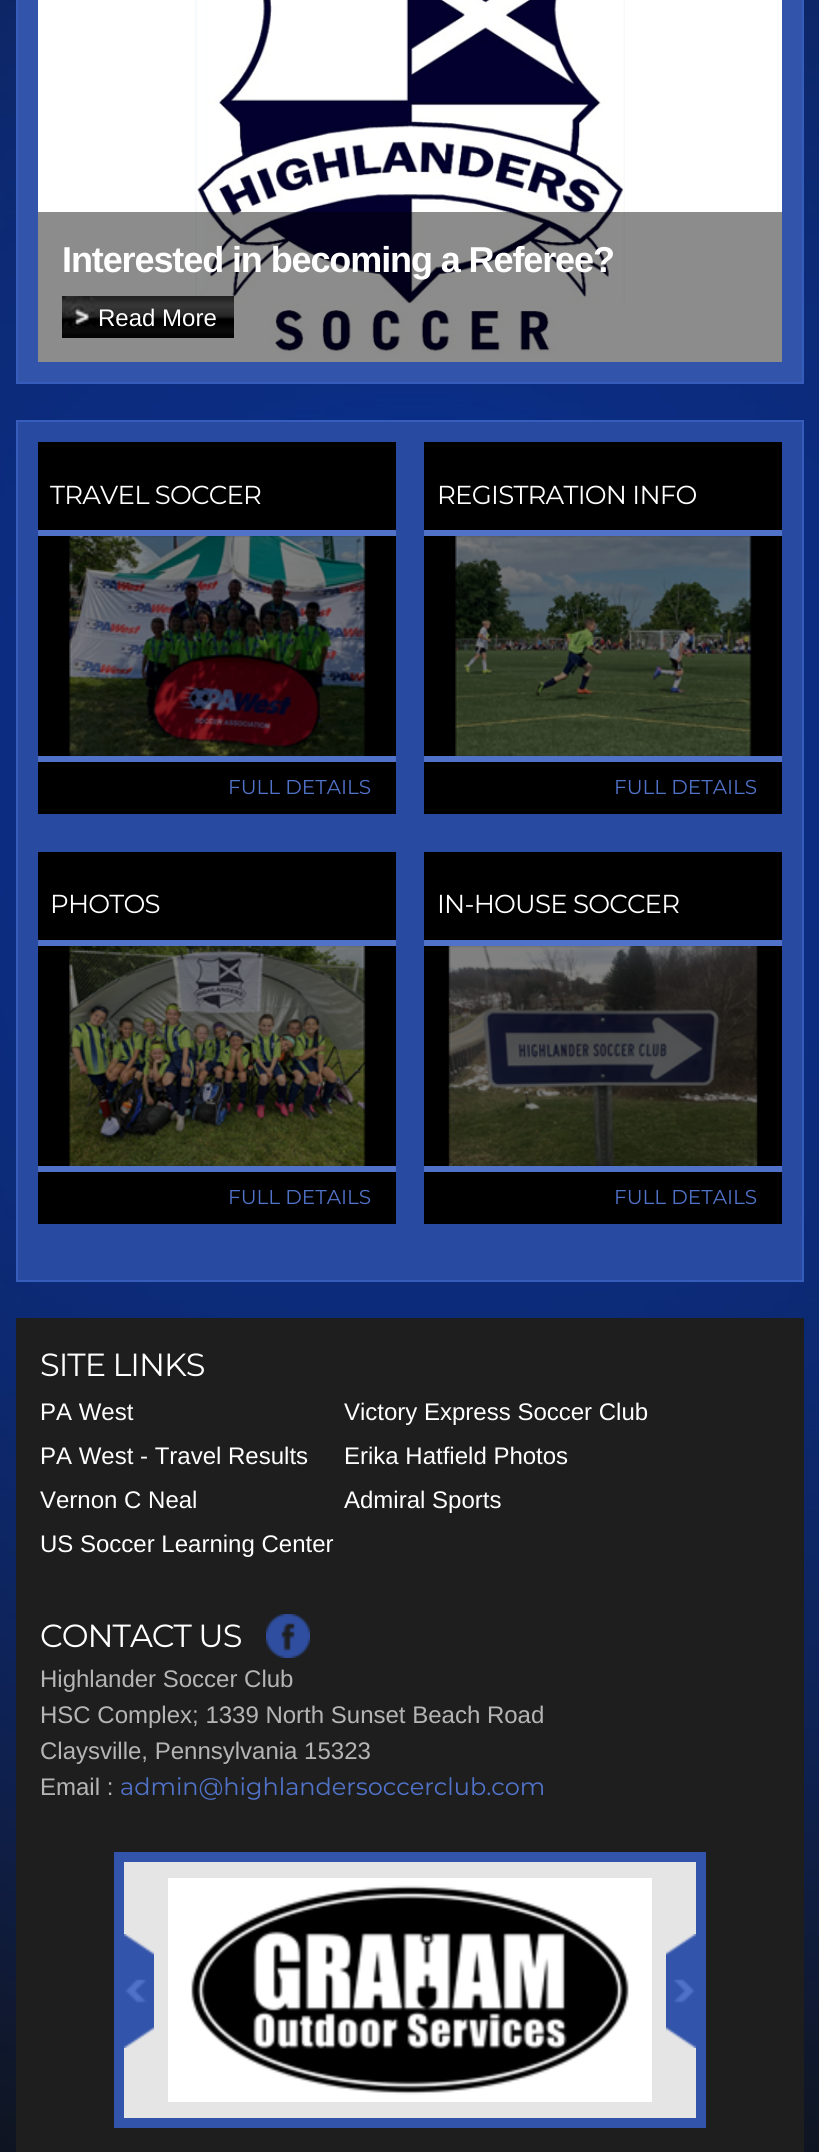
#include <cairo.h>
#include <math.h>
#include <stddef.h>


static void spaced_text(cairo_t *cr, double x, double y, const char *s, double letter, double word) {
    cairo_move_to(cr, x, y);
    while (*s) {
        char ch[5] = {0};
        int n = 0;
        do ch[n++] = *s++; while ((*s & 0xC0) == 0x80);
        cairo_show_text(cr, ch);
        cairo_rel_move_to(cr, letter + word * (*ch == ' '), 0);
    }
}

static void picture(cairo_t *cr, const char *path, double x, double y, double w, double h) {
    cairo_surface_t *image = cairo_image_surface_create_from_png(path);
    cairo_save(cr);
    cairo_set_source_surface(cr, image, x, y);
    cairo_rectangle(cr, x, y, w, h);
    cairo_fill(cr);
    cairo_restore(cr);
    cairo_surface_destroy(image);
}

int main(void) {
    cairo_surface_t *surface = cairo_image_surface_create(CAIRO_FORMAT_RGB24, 819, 2152);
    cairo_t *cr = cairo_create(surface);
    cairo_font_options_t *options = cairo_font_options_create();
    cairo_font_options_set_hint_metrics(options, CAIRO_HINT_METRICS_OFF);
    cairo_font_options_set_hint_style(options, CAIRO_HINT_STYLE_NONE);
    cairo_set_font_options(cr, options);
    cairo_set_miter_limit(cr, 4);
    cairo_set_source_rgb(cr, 1, 1, 1);
    cairo_paint(cr);
    picture(cr, "img1.png", 0, 0, 819, 2152);
    cairo_set_source_rgb(cr, 0.196, 0.329, 0.671);
    cairo_rectangle(cr, 17, -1, 786, 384);
    cairo_fill_preserve(cr);
    cairo_set_source_rgb(cr, 0.216, 0.365, 0.737);
    cairo_stroke(cr);
    cairo_set_source_rgb(cr, 1, 1, 1);
    cairo_rectangle(cr, 38, 0, 744, 362);
    cairo_fill(cr);
    picture(cr, "img2.png", 195, 0, 430, 354);
    cairo_set_source_rgba(cr, 0, 0, 0, 0.45);
    cairo_rectangle(cr, 38, 212, 744, 150);
    cairo_fill(cr);
    cairo_select_font_face(cr, "Liberation Sans", CAIRO_FONT_SLANT_NORMAL, CAIRO_FONT_WEIGHT_BOLD);
    cairo_set_font_size(cr, 36);
    cairo_set_source_rgb(cr, 1, 1, 1);
    spaced_text(cr, 62, 272, "Interested in becoming a Referee?", -1.1, 0);
    picture(cr, "img3.png", 62, 296, 172, 42);
    cairo_select_font_face(cr, "Liberation Sans", CAIRO_FONT_SLANT_NORMAL, CAIRO_FONT_WEIGHT_NORMAL);
    cairo_set_font_size(cr, 24);
    cairo_move_to(cr, 98, 326);
    cairo_show_text(cr, "Read More");
    cairo_set_source_rgb(cr, 0.157, 0.29, 0.627);
    cairo_rectangle(cr, 17, 421, 786, 860);
    cairo_fill_preserve(cr);
    cairo_set_source_rgb(cr, 0.216, 0.365, 0.737);
    cairo_stroke(cr);
    cairo_set_source_rgb(cr, 0, 0, 0);
    cairo_rectangle(cr, 38, 442, 358, 372);
    cairo_fill(cr);
    cairo_set_source_rgb(cr, 0.314, 0.447, 0.788);
    cairo_rectangle(cr, 38, 530, 358, 6);
    cairo_fill(cr);
    cairo_select_font_face(cr, "Montserrat", CAIRO_FONT_SLANT_NORMAL, CAIRO_FONT_WEIGHT_NORMAL);
    cairo_set_font_size(cr, 26);
    cairo_set_source_rgb(cr, 1, 1, 1);
    spaced_text(cr, 50, 504, "TRAVEL SOCCER", -0.75, 0);
    picture(cr, "img4.png", 69, 536, 297, 220);
    cairo_set_source_rgb(cr, 0.314, 0.447, 0.788);
    cairo_rectangle(cr, 38, 756, 358, 6);
    cairo_fill(cr);
    cairo_set_font_size(cr, 20);
    cairo_move_to(cr, 228, 794);
    cairo_show_text(cr, "FULL DETAILS");
    cairo_set_source_rgb(cr, 0, 0, 0);
    cairo_rectangle(cr, 424, 442, 358, 372);
    cairo_fill(cr);
    cairo_set_source_rgb(cr, 0.314, 0.447, 0.788);
    cairo_rectangle(cr, 424, 530, 358, 6);
    cairo_fill(cr);
    cairo_set_font_size(cr, 26);
    cairo_set_source_rgb(cr, 1, 1, 1);
    spaced_text(cr, 437, 504, "REGISTRATION INFO", -0.75, 0);
    picture(cr, "img5.png", 455, 536, 297, 220);
    cairo_set_source_rgb(cr, 0.314, 0.447, 0.788);
    cairo_rectangle(cr, 424, 756, 358, 6);
    cairo_fill(cr);
    cairo_set_font_size(cr, 20);
    cairo_move_to(cr, 614, 794);
    cairo_show_text(cr, "FULL DETAILS");
    cairo_set_source_rgb(cr, 0, 0, 0);
    cairo_rectangle(cr, 38, 852, 358, 372);
    cairo_fill(cr);
    cairo_set_source_rgb(cr, 0.314, 0.447, 0.788);
    cairo_rectangle(cr, 38, 940, 358, 6);
    cairo_fill(cr);
    cairo_set_font_size(cr, 26);
    cairo_set_source_rgb(cr, 1, 1, 1);
    spaced_text(cr, 50, 913, "PHOTOS", -0.75, 0);
    picture(cr, "img6.png", 69, 946, 297, 220);
    cairo_set_source_rgb(cr, 0.314, 0.447, 0.788);
    cairo_rectangle(cr, 38, 1166, 358, 6);
    cairo_fill(cr);
    cairo_set_font_size(cr, 20);
    cairo_move_to(cr, 228, 1204);
    cairo_show_text(cr, "FULL DETAILS");
    cairo_set_source_rgb(cr, 0, 0, 0);
    cairo_rectangle(cr, 424, 852, 358, 372);
    cairo_fill(cr);
    cairo_set_source_rgb(cr, 0.314, 0.447, 0.788);
    cairo_rectangle(cr, 424, 940, 358, 6);
    cairo_fill(cr);
    cairo_set_font_size(cr, 26);
    cairo_set_source_rgb(cr, 1, 1, 1);
    spaced_text(cr, 437, 913, "IN-HOUSE SOCCER", -0.75, 0);
    picture(cr, "img7.png", 448, 946, 310, 220);
    cairo_set_source_rgb(cr, 0.314, 0.447, 0.788);
    cairo_rectangle(cr, 424, 1166, 358, 6);
    cairo_fill(cr);
    cairo_set_font_size(cr, 20);
    cairo_move_to(cr, 614, 1204);
    cairo_show_text(cr, "FULL DETAILS");
    cairo_set_source_rgb(cr, 0.118, 0.118, 0.118);
    cairo_rectangle(cr, 16, 1318, 788, 834);
    cairo_fill(cr);
    cairo_set_font_size(cr, 32);
    cairo_set_source_rgb(cr, 1, 1, 1);
    spaced_text(cr, 40, 1376, "SITE LINKS", -1, 0);
    cairo_select_font_face(cr, "Liberation Sans", CAIRO_FONT_SLANT_NORMAL, CAIRO_FONT_WEIGHT_NORMAL);
    cairo_set_font_size(cr, 24);
    cairo_move_to(cr, 40, 1420);
    cairo_show_text(cr, "PA West");
    cairo_move_to(cr, 40, 1464);
    cairo_show_text(cr, "PA West - Travel Results");
    cairo_move_to(cr, 40, 1508);
    cairo_show_text(cr, "Vernon C Neal");
    cairo_move_to(cr, 344, 1420);
    cairo_show_text(cr, "Victory Express Soccer Club");
    cairo_move_to(cr, 344, 1464);
    cairo_show_text(cr, "Erika Hatfield Photos");
    cairo_move_to(cr, 344, 1508);
    cairo_show_text(cr, "Admiral Sports");
    cairo_move_to(cr, 40, 1552);
    cairo_show_text(cr, "US Soccer Learning Center");
    cairo_select_font_face(cr, "Montserrat", CAIRO_FONT_SLANT_NORMAL, CAIRO_FONT_WEIGHT_NORMAL);
    cairo_set_font_size(cr, 32);
    spaced_text(cr, 40, 1647, "CONTACT US", -1, 0);
    picture(cr, "img8.png", 266, 1614, 44, 44);
    cairo_select_font_face(cr, "Liberation Sans", CAIRO_FONT_SLANT_NORMAL, CAIRO_FONT_WEIGHT_NORMAL);
    cairo_set_font_size(cr, 24);
    cairo_set_source_rgb(cr, 0.71, 0.71, 0.71);
    cairo_move_to(cr, 40, 1687);
    cairo_show_text(cr, "Highlander Soccer Club");
    cairo_move_to(cr, 40, 1723);
    cairo_show_text(cr, "HSC Complex; 1339 North Sunset Beach Road");
    cairo_move_to(cr, 40, 1759);
    cairo_show_text(cr, "Claysville, Pennsylvania 15323");
    cairo_move_to(cr, 40, 1795);
    cairo_show_text(cr, "Email :");
    cairo_select_font_face(cr, "Montserrat", CAIRO_FONT_SLANT_NORMAL, CAIRO_FONT_WEIGHT_NORMAL);
    cairo_set_source_rgb(cr, 0.314, 0.447, 0.788);
    cairo_move_to(cr, 120, 1795);
    cairo_show_text(cr, "admin@highlandersoccerclub.com");
    cairo_set_source_rgb(cr, 0.898, 0.898, 0.898);
    cairo_rectangle(cr, 119, 1857, 582, 266);
    cairo_fill_preserve(cr);
    cairo_set_source_rgb(cr, 0.196, 0.329, 0.671);
    cairo_set_line_width(cr, 10);
    cairo_stroke(cr);
    picture(cr, "img9.png", 124, 1934, 30, 114);
    cairo_set_source_rgb(cr, 1, 1, 1);
    cairo_rectangle(cr, 168, 1878, 484, 224);
    cairo_fill(cr);
    picture(cr, "img10.png", 191, 1885, 438, 210);
    picture(cr, "img11.png", 666, 1934, 30, 114);
    cairo_surface_write_to_png(surface, "page.png");
    cairo_font_options_destroy(options);
    cairo_destroy(cr);
    cairo_surface_destroy(surface);
    return 0;
}
